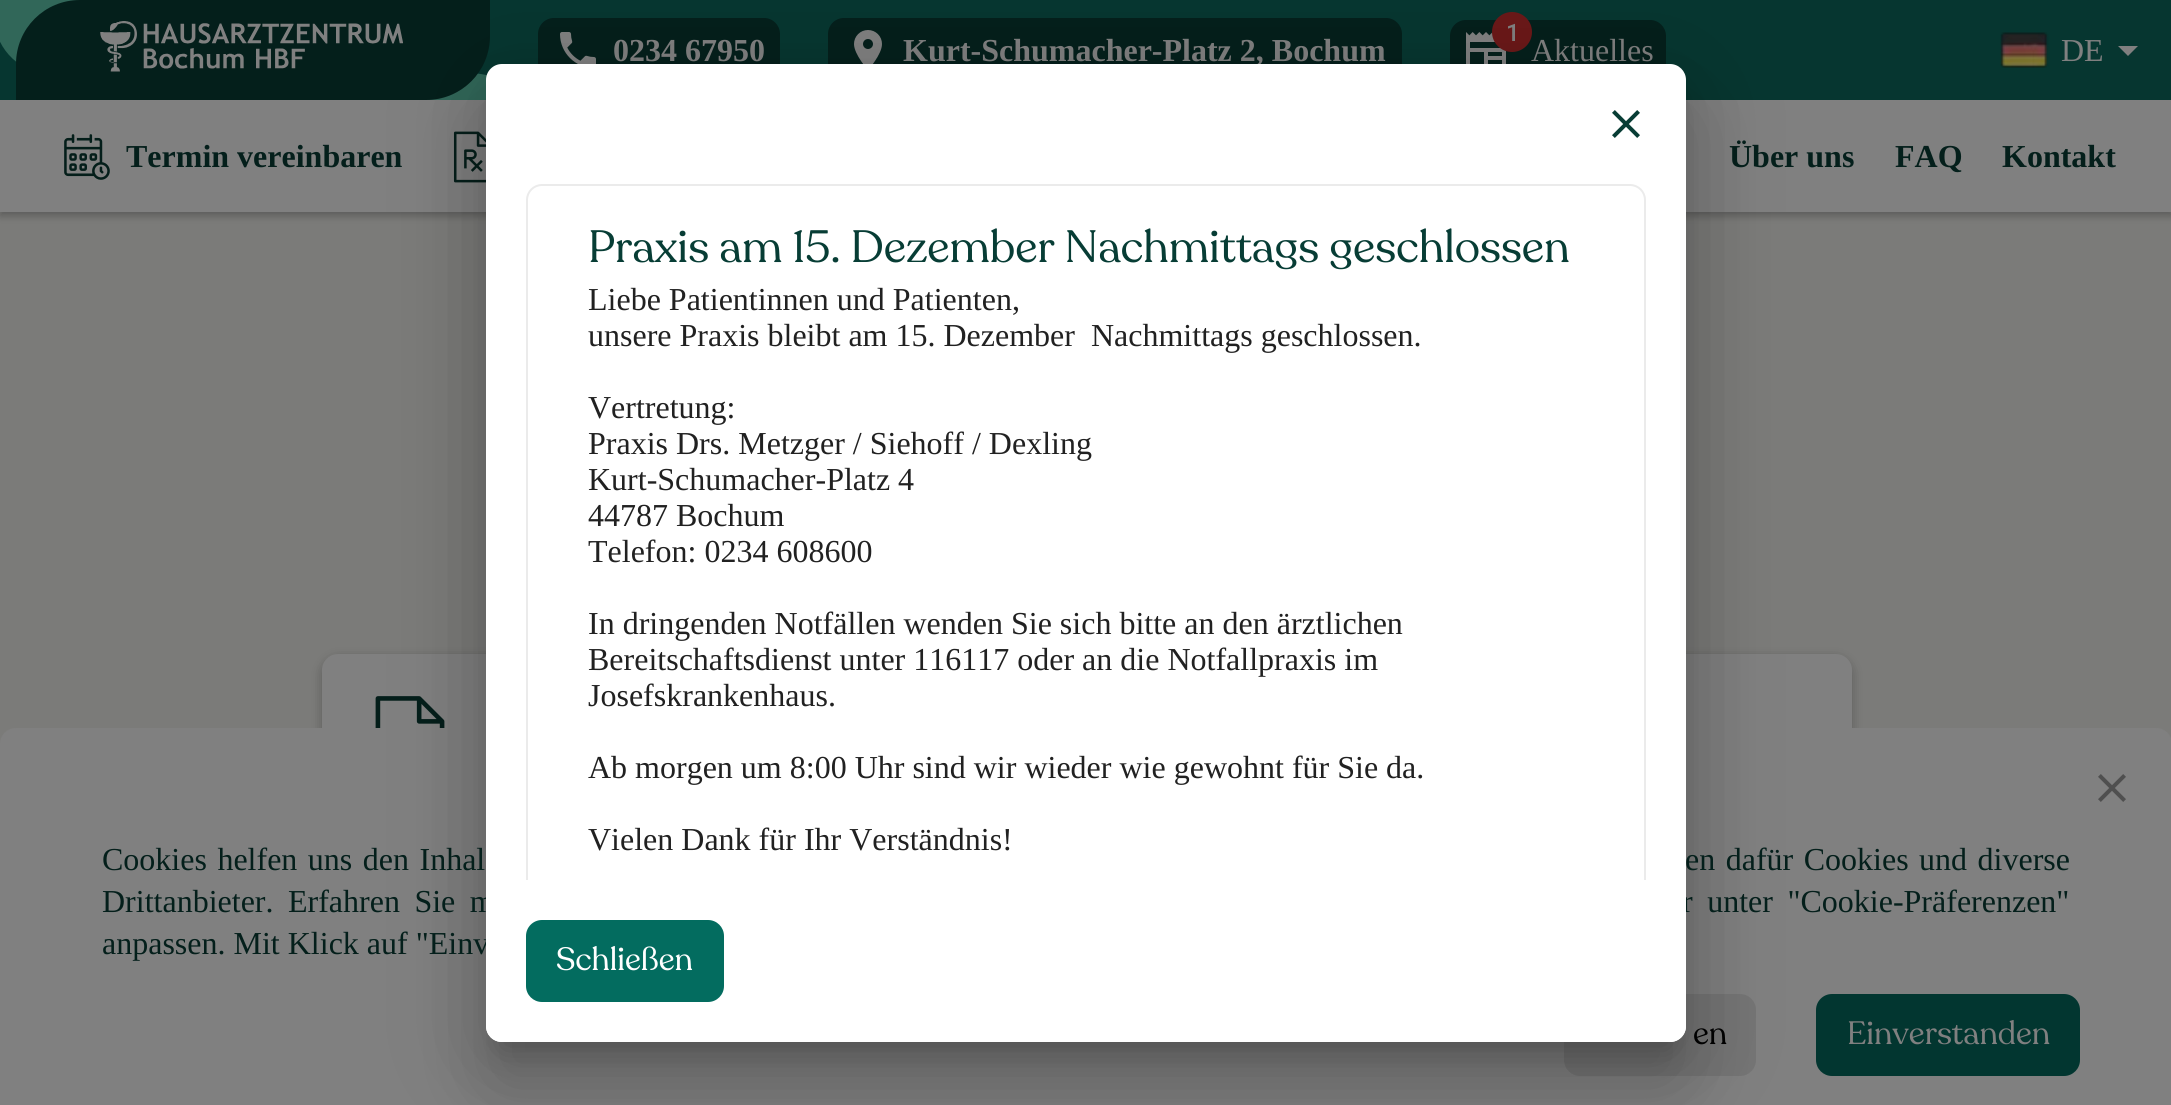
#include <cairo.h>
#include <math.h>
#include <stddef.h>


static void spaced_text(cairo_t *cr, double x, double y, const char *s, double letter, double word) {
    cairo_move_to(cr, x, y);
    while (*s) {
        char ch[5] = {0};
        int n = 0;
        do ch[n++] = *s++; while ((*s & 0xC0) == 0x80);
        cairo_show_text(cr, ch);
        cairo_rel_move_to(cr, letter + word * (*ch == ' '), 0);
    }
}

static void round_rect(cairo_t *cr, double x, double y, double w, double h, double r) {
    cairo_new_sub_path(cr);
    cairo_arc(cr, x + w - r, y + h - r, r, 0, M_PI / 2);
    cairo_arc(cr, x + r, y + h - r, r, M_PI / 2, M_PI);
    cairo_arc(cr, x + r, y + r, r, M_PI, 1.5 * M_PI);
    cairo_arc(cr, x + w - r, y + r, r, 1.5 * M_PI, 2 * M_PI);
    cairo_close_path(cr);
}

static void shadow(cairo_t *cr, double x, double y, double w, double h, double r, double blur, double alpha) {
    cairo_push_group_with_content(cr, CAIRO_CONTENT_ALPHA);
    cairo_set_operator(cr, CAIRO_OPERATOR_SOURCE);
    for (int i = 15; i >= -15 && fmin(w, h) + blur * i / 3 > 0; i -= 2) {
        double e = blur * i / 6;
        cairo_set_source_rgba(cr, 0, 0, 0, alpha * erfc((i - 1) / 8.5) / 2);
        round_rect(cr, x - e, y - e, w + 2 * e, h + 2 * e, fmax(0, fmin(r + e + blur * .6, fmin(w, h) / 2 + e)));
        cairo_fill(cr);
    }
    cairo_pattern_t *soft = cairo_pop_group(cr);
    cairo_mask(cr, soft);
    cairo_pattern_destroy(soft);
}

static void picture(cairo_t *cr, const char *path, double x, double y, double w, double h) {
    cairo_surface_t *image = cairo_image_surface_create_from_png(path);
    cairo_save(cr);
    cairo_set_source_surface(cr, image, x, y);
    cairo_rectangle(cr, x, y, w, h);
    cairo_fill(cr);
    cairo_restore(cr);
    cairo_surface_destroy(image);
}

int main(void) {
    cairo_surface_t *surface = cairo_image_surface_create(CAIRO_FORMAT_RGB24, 2171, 1105);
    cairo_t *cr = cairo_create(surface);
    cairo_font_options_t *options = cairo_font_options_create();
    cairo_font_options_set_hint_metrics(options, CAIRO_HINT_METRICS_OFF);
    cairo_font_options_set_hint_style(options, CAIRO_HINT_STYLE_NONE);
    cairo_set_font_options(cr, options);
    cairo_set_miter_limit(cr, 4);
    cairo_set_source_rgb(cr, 0.482, 0.482, 0.475);
    cairo_paint(cr);
    cairo_set_source_rgb(cr, 0, 0, 0);
    shadow(cr, 0, 4, 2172, 212, 0, 4, 0.25);
    cairo_set_source_rgb(cr, 0.027, 0.212, 0.188);
    cairo_rectangle(cr, 0, 0, 2171, 100);
    cairo_fill(cr);
    cairo_set_source_rgb(cr, 0.192, 0.404, 0.349);
    cairo_new_path(cr);
    cairo_move_to(cr, 37, 73);
    cairo_curve_to(cr, -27, 51, -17, -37, 51, -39);
    cairo_curve_to(cr, 134, -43, 208, -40, 222, -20);
    cairo_curve_to(cr, 240, 5, 239, 31, 235, 49);
    cairo_curve_to(cr, 230, 70, 210, 80, 189, 80);
    cairo_line_to(cr, 58, 80);
    cairo_close_path(cr);
    cairo_fill(cr);
    cairo_save(cr);
    cairo_rectangle(cr, 0, 0, 530, 100);
    cairo_clip(cr);
    cairo_new_path(cr);
    cairo_move_to(cr, 335, 183);
    cairo_curve_to(cr, 271, 161, 281, 73, 349, 71);
    cairo_curve_to(cr, 432, 67, 506, 70, 520, 90);
    cairo_curve_to(cr, 538, 115, 537, 141, 533, 159);
    cairo_curve_to(cr, 528, 180, 508, 190, 487, 190);
    cairo_line_to(cr, 356, 190);
    cairo_close_path(cr);
    cairo_fill(cr);
    cairo_restore(cr);
    cairo_set_source_rgb(cr, 0.016, 0.122, 0.106);
    cairo_new_path(cr);
    cairo_move_to(cr, 80, 0);
    cairo_line_to(cr, 490, 0);
    cairo_line_to(cr, 490, 36);
    cairo_curve_to(cr, 490, 71.5, 461.5, 100, 426, 100);
    cairo_line_to(cr, 16, 100);
    cairo_line_to(cr, 16, 64);
    cairo_curve_to(cr, 16, 28.5, 44.5, 0, 80, 0);
    cairo_close_path(cr);
    cairo_fill(cr);
    picture(cr, "img1.png", 100, 21, 303, 51);
    round_rect(cr, 538, 18, 242, 64, 16);
    cairo_fill(cr);
    picture(cr, "img2.png", 560, 32, 36, 32);
    cairo_select_font_face(cr, "Liberation Serif", CAIRO_FONT_SLANT_NORMAL, CAIRO_FONT_WEIGHT_BOLD);
    cairo_set_font_size(cr, 32);
    cairo_set_source_rgb(cr, 0.502, 0.502, 0.502);
    cairo_move_to(cr, 613, 61);
    cairo_show_text(cr, "0234 67950");
    cairo_set_source_rgb(cr, 0.016, 0.122, 0.106);
    round_rect(cr, 828, 18, 574, 64, 16);
    cairo_fill(cr);
    picture(cr, "img3.png", 854, 30, 28, 34);
    cairo_set_source_rgb(cr, 0.502, 0.502, 0.502);
    cairo_move_to(cr, 903, 61);
    cairo_show_text(cr, "Kurt-Schumacher-Platz 2, Bochum");
    cairo_set_source_rgb(cr, 0.016, 0.122, 0.106);
    round_rect(cr, 1450, 20, 216, 60, 16);
    cairo_fill(cr);
    picture(cr, "img4.png", 1466, 32, 40, 32);
    cairo_select_font_face(cr, "Liberation Serif", CAIRO_FONT_SLANT_NORMAL, CAIRO_FONT_WEIGHT_NORMAL);
    cairo_set_source_rgb(cr, 0.502, 0.502, 0.502);
    cairo_move_to(cr, 1531, 61);
    cairo_show_text(cr, "Aktuelles");
    cairo_set_source_rgb(cr, 0.416, 0.094, 0.094);
    cairo_new_path(cr);
    cairo_arc(cr, 1512, 32, 20, 0, 2 * M_PI);
    cairo_fill(cr);
    cairo_select_font_face(cr, "Roboto Medium", CAIRO_FONT_SLANT_NORMAL, CAIRO_FONT_WEIGHT_NORMAL);
    cairo_set_font_size(cr, 24);
    cairo_set_source_rgb(cr, 0.502, 0.502, 0.502);
    cairo_move_to(cr, 1506, 41);
    cairo_show_text(cr, "1");
    picture(cr, "img5.png", 2000, 32, 49, 36);
    cairo_select_font_face(cr, "Liberation Serif", CAIRO_FONT_SLANT_NORMAL, CAIRO_FONT_WEIGHT_NORMAL);
    cairo_set_font_size(cr, 32);
    cairo_move_to(cr, 2061, 61);
    cairo_show_text(cr, "DE");
    cairo_new_path(cr);
    cairo_move_to(cr, 2118, 46);
    cairo_line_to(cr, 2128, 56);
    cairo_line_to(cr, 2138, 46);
    cairo_close_path(cr);
    cairo_fill(cr);
    cairo_rectangle(cr, 0, 100, 2171, 112);
    cairo_fill(cr);
    picture(cr, "img6.png", 64, 134, 46, 46);
    cairo_select_font_face(cr, "Liberation Serif", CAIRO_FONT_SLANT_NORMAL, CAIRO_FONT_WEIGHT_BOLD);
    cairo_set_source_rgb(cr, 0.016, 0.122, 0.106);
    cairo_move_to(cr, 126, 167);
    cairo_show_text(cr, "Termin vereinbaren");
    picture(cr, "img7.png", 453, 131, 33, 52);
    cairo_move_to(cr, 1729, 167);
    cairo_show_text(cr, "Über uns");
    cairo_move_to(cr, 1895, 167);
    cairo_show_text(cr, "FAQ");
    cairo_move_to(cr, 2002, 167);
    cairo_show_text(cr, "Kontakt");
    cairo_set_source_rgb(cr, 0, 0, 0);
    shadow(cr, 322, 658, 478, 314, 16, 6, 0.25);
    cairo_set_source_rgb(cr, 0.502, 0.502, 0.502);
    round_rect(cr, 322, 654, 478, 314, 16);
    cairo_fill(cr);
    picture(cr, "img9.png", 375, 696, 70, 32);
    cairo_set_source_rgb(cr, 0, 0, 0);
    shadow(cr, 1374, 658, 478, 314, 16, 6, 0.25);
    cairo_set_source_rgb(cr, 0.502, 0.502, 0.502);
    round_rect(cr, 1374, 654, 478, 314, 16);
    cairo_fill(cr);
    cairo_new_path(cr);
    cairo_move_to(cr, 16, 728);
    cairo_line_to(cr, 2156, 728);
    cairo_curve_to(cr, 2165, 728, 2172, 735, 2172, 744);
    cairo_line_to(cr, 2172, 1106);
    cairo_line_to(cr, 0, 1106);
    cairo_line_to(cr, 0, 744);
    cairo_curve_to(cr, 0, 735, 7, 728, 16, 728);
    cairo_close_path(cr);
    cairo_fill(cr);
    cairo_set_source_rgb(cr, 0.459, 0.459, 0.459);
    round_rect(cr, 1564, 994, 192, 82, 16);
    cairo_fill(cr);
    cairo_set_source_rgb(cr, 0.008, 0.212, 0.188);
    round_rect(cr, 1816, 994, 264, 82, 16);
    cairo_fill(cr);
    cairo_set_source_rgb(cr, 0, 0, 0);
    shadow(cr, 470, 66, 1232, 1010, 32, 46, 0.12);
    shadow(cr, 480, 106, 1212, 990, 22, 38, 0.14);
    shadow(cr, 500, 100, 1172, 950, 2, 15, 0.2);
    cairo_select_font_face(cr, "Liberation Serif", CAIRO_FONT_SLANT_NORMAL, CAIRO_FONT_WEIGHT_NORMAL);
    cairo_set_source_rgb(cr, 0.016, 0.122, 0.106);
    spaced_text(cr, 102, 912, "Drittanbieter. Erfahren Sie m", 0, 6.5);
    spaced_text(cr, 1682, 912, "r unter \"Cookie-Präferenzen\"", 0, 6.5);
    cairo_move_to(cr, 102, 954);
    cairo_show_text(cr, "anpassen. Mit Klick auf \"Einv");
    cairo_set_source_rgb(cr, 1, 1, 1);
    round_rect(cr, 486, 64, 1200, 978, 16);
    cairo_fill(cr);
    picture(cr, "img8.png", 1612, 110, 28, 28);
    cairo_new_path(cr);
    cairo_move_to(cr, 486, 880);
    cairo_line_to(cr, 1686, 880);
    cairo_line_to(cr, 1686, 1026);
    cairo_curve_to(cr, 1686, 1035, 1679, 1042, 1670, 1042);
    cairo_line_to(cr, 502, 1042);
    cairo_curve_to(cr, 493, 1042, 486, 1035, 486, 1026);
    cairo_close_path(cr);
    cairo_fill(cr);
    cairo_set_source_rgb(cr, 0.012, 0.424, 0.373);
    round_rect(cr, 526, 920, 198, 82, 16);
    cairo_fill(cr);
    cairo_save(cr);
    cairo_rectangle(cr, 486, 184, 1200, 696);
    cairo_clip(cr);
    round_rect(cr, 527, 185, 1118, 740, 15);
    cairo_set_source_rgb(cr, 0.918, 0.918, 0.918);
    cairo_stroke(cr);
    cairo_restore(cr);
    cairo_select_font_face(cr, "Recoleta", CAIRO_FONT_SLANT_NORMAL, CAIRO_FONT_WEIGHT_NORMAL);
    cairo_set_font_size(cr, 44.8);
    cairo_set_source_rgb(cr, 0.031, 0.239, 0.208);
    cairo_move_to(cr, 588, 262);
    cairo_show_text(cr, "Praxis am 15. Dezember Nachmittags geschlossen");
    cairo_select_font_face(cr, "Liberation Serif", CAIRO_FONT_SLANT_NORMAL, CAIRO_FONT_WEIGHT_NORMAL);
    cairo_set_font_size(cr, 32);
    cairo_set_source_rgb(cr, 0.129, 0.129, 0.129);
    cairo_move_to(cr, 588, 310);
    cairo_show_text(cr, "Liebe Patientinnen und Patienten,");
    cairo_move_to(cr, 588, 346);
    cairo_show_text(cr, "unsere Praxis bleibt am 15. Dezember  Nachmittags geschlossen.");
    cairo_move_to(cr, 588, 418);
    cairo_show_text(cr, "Vertretung:");
    cairo_move_to(cr, 588, 454);
    cairo_show_text(cr, "Praxis Drs. Metzger / Siehoff / Dexling");
    cairo_move_to(cr, 588, 490);
    cairo_show_text(cr, "Kurt-Schumacher-Platz 4");
    cairo_move_to(cr, 588, 526);
    cairo_show_text(cr, "44787 Bochum");
    cairo_move_to(cr, 588, 562);
    cairo_show_text(cr, "Telefon: 0234 608600");
    cairo_move_to(cr, 588, 634);
    cairo_show_text(cr, "In dringenden Notfällen wenden Sie sich bitte an den ärztlichen");
    cairo_move_to(cr, 588, 670);
    cairo_show_text(cr, "Bereitschaftsdienst unter 116117 oder an die Notfallpraxis im");
    cairo_move_to(cr, 588, 706);
    cairo_show_text(cr, "Josefskrankenhaus.");
    cairo_move_to(cr, 588, 778);
    cairo_show_text(cr, "Ab morgen um 8:00 Uhr sind wir wieder wie gewohnt für Sie da.");
    cairo_move_to(cr, 588, 850);
    cairo_show_text(cr, "Vielen Dank für Ihr Verständnis!");
    cairo_select_font_face(cr, "Recoleta", CAIRO_FONT_SLANT_NORMAL, CAIRO_FONT_WEIGHT_NORMAL);
    cairo_set_source_rgb(cr, 1, 1, 1);
    cairo_move_to(cr, 556, 970);
    cairo_show_text(cr, "Schließen");
    picture(cr, "img10.png", 2098, 774, 28, 28);
    cairo_select_font_face(cr, "Liberation Serif", CAIRO_FONT_SLANT_NORMAL, CAIRO_FONT_WEIGHT_NORMAL);
    cairo_set_source_rgb(cr, 0.016, 0.122, 0.106);
    spaced_text(cr, 102, 870, "Cookies helfen uns den Inhal", 0, 2.5);
    spaced_text(cr, 1685, 870, "en dafür Cookies und diverse", 0, 2.5);
    cairo_select_font_face(cr, "Recoleta", CAIRO_FONT_SLANT_NORMAL, CAIRO_FONT_WEIGHT_NORMAL);
    cairo_set_source_rgb(cr, 0, 0, 0);
    cairo_move_to(cr, 1693, 1044);
    cairo_show_text(cr, "en");
    cairo_set_source_rgb(cr, 0.502, 0.502, 0.502);
    cairo_move_to(cr, 1847, 1044);
    cairo_show_text(cr, "Einverstanden");
    cairo_surface_write_to_png(surface, "page.png");
    cairo_font_options_destroy(options);
    cairo_destroy(cr);
    cairo_surface_destroy(surface);
    return 0;
}
